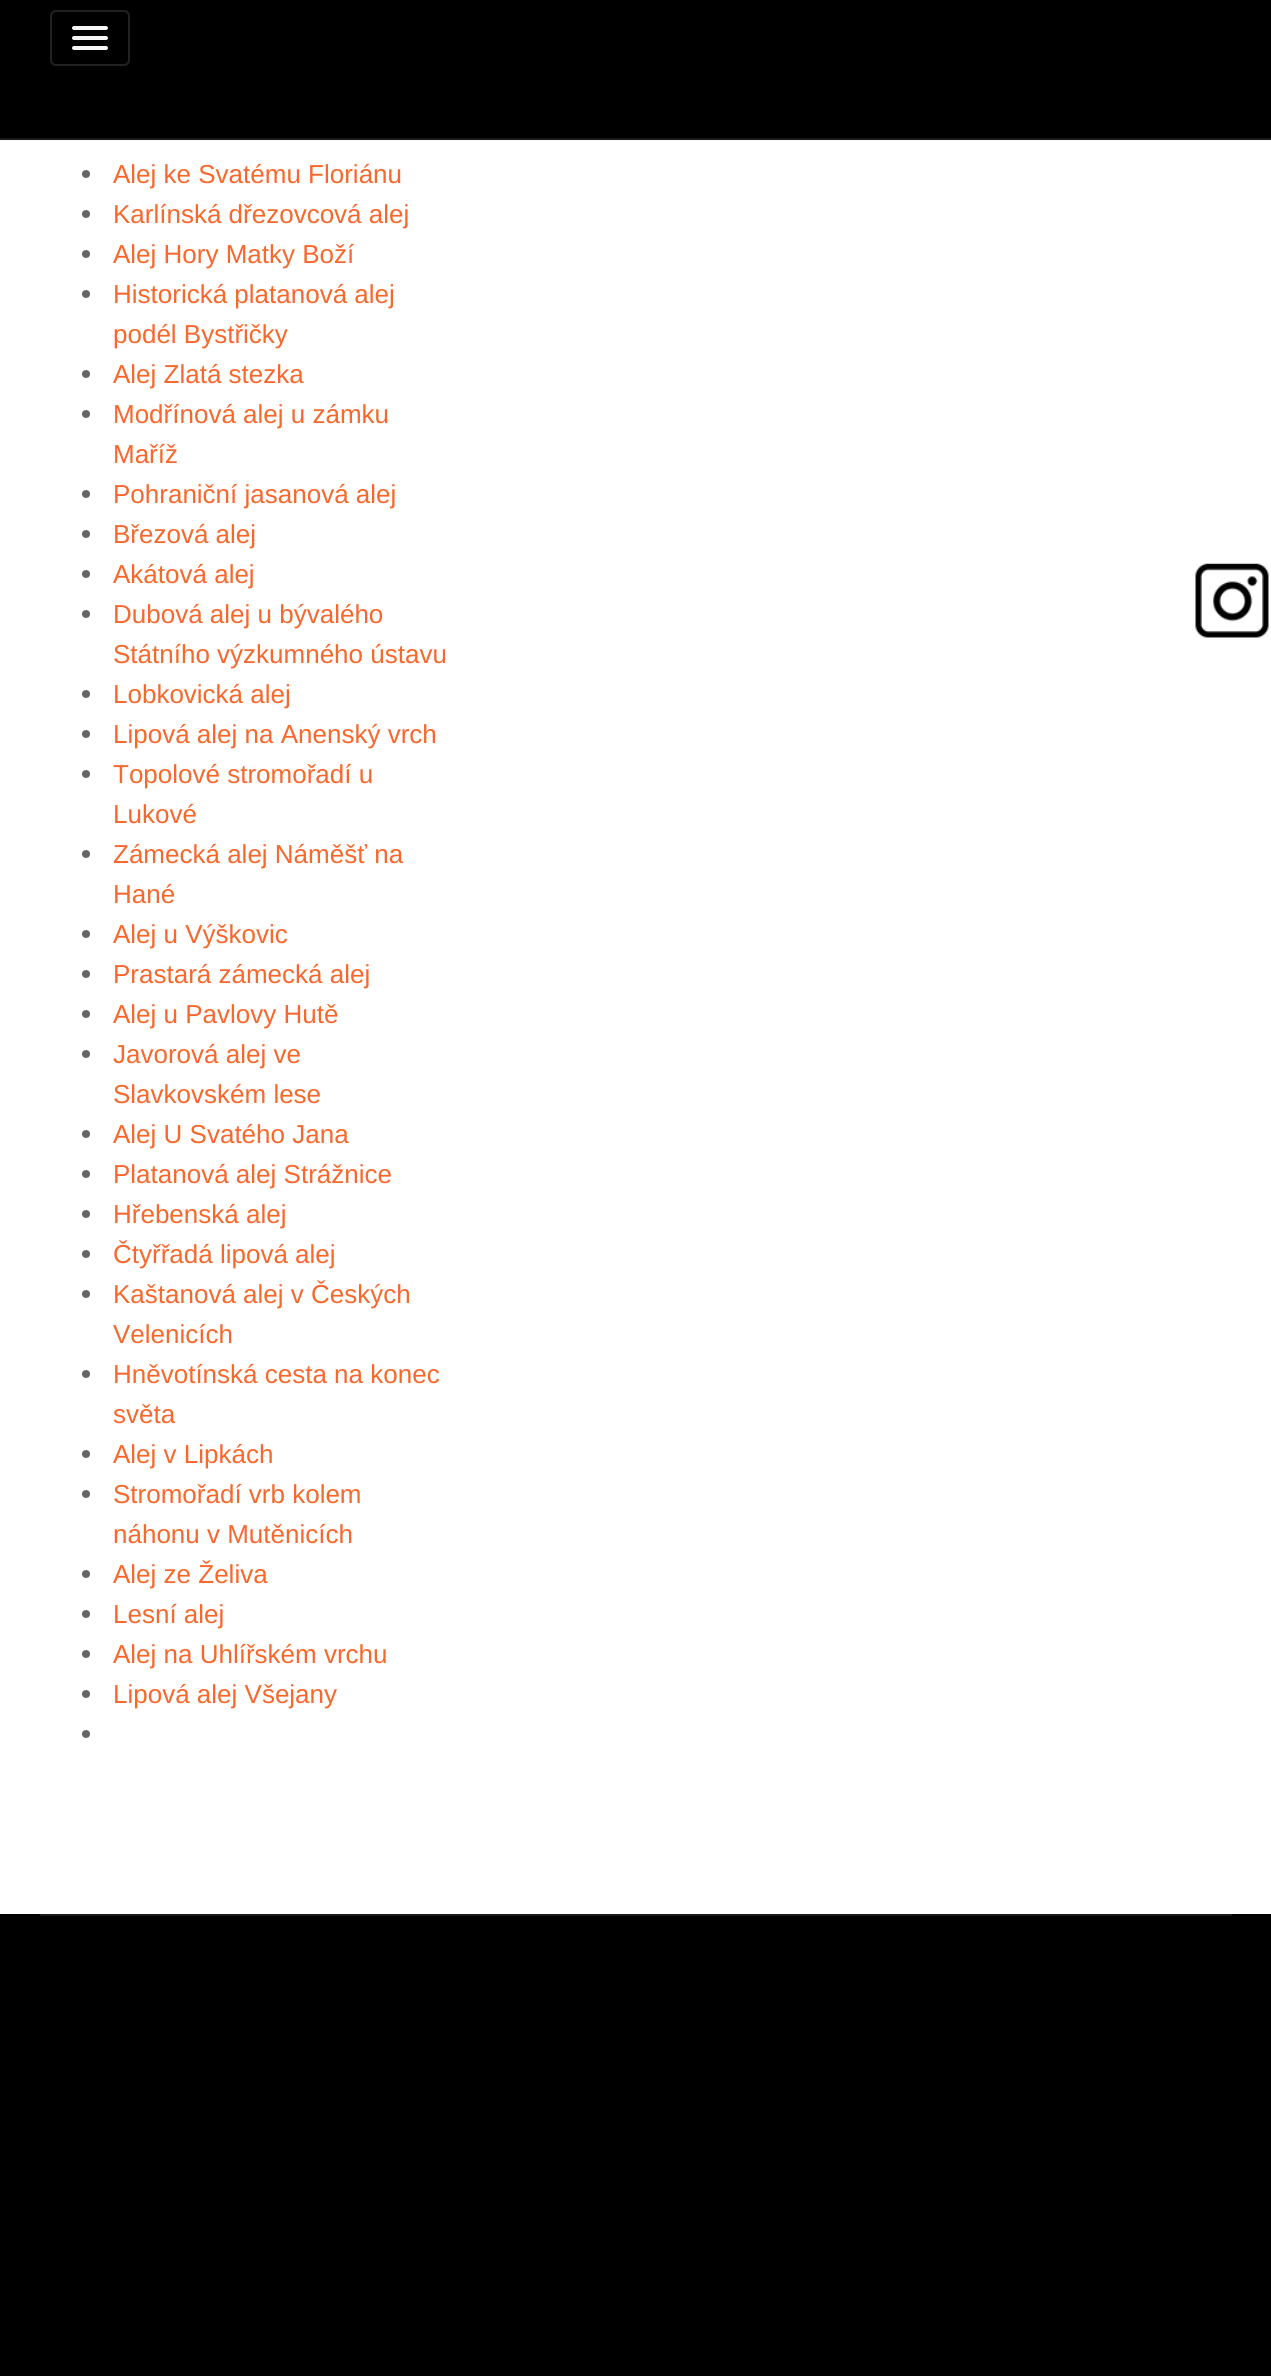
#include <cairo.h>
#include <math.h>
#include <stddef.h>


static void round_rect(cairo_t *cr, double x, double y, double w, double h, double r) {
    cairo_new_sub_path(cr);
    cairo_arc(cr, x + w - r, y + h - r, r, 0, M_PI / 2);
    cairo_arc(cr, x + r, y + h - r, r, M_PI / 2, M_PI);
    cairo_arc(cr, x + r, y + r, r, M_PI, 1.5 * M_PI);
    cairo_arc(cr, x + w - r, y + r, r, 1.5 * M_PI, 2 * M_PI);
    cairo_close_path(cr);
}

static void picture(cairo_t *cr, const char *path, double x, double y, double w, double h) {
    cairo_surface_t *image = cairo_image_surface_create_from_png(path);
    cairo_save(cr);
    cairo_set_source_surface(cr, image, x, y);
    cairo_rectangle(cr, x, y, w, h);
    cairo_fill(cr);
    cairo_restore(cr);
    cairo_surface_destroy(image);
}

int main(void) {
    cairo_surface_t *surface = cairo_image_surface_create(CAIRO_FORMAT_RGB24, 1271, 2376);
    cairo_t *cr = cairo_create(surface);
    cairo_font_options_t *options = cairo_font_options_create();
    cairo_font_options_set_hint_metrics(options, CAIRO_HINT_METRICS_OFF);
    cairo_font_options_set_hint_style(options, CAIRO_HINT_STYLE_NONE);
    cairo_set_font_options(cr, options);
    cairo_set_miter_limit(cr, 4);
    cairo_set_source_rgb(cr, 1, 1, 1);
    cairo_paint(cr);
    cairo_set_source_rgb(cr, 0, 0, 0);
    cairo_rectangle(cr, 0, 0, 1271, 138);
    cairo_fill(cr);
    cairo_set_source_rgb(cr, 0.102, 0.102, 0.102);
    cairo_rectangle(cr, 0, 138, 1271, 2);
    cairo_fill(cr);
    round_rect(cr, 51, 11, 78, 54, 5);
    cairo_set_source_rgb(cr, 0.133, 0.133, 0.133);
    cairo_stroke(cr);
    cairo_set_source_rgb(cr, 0.961, 0.961, 0.961);
    round_rect(cr, 72, 26, 36, 4, 2);
    cairo_fill(cr);
    round_rect(cr, 72, 36, 36, 4, 2);
    cairo_fill(cr);
    round_rect(cr, 72, 46, 36, 4, 2);
    cairo_fill(cr);
    cairo_set_source_rgb(cr, 0.4, 0.4, 0.4);
    cairo_arc(cr, 86, 174, 4, 0, 2 * M_PI);
    cairo_fill(cr);
    cairo_select_font_face(cr, "Liberation Sans", CAIRO_FONT_SLANT_NORMAL, CAIRO_FONT_WEIGHT_NORMAL);
    cairo_set_font_size(cr, 26);
    cairo_set_source_rgb(cr, 0.969, 0.408, 0.173);
    cairo_move_to(cr, 113, 183);
    cairo_show_text(cr, "Alej ke Svatému Floriánu");
    cairo_set_source_rgb(cr, 0.4, 0.4, 0.4);
    cairo_new_path(cr);
    cairo_arc(cr, 86, 214, 4, 0, 2 * M_PI);
    cairo_fill(cr);
    cairo_set_source_rgb(cr, 0.969, 0.408, 0.173);
    cairo_move_to(cr, 113, 223);
    cairo_show_text(cr, "Karlínská dřezovcová alej");
    cairo_set_source_rgb(cr, 0.4, 0.4, 0.4);
    cairo_new_path(cr);
    cairo_arc(cr, 86, 254, 4, 0, 2 * M_PI);
    cairo_fill(cr);
    cairo_set_source_rgb(cr, 0.969, 0.408, 0.173);
    cairo_move_to(cr, 113, 263);
    cairo_show_text(cr, "Alej Hory Matky Boží");
    cairo_set_source_rgb(cr, 0.4, 0.4, 0.4);
    cairo_new_path(cr);
    cairo_arc(cr, 86, 294, 4, 0, 2 * M_PI);
    cairo_fill(cr);
    cairo_set_source_rgb(cr, 0.969, 0.408, 0.173);
    cairo_move_to(cr, 113, 303);
    cairo_show_text(cr, "Historická platanová alej");
    cairo_move_to(cr, 113, 343);
    cairo_show_text(cr, "podél Bystřičky");
    cairo_set_source_rgb(cr, 0.4, 0.4, 0.4);
    cairo_new_path(cr);
    cairo_arc(cr, 86, 374, 4, 0, 2 * M_PI);
    cairo_fill(cr);
    cairo_set_source_rgb(cr, 0.969, 0.408, 0.173);
    cairo_move_to(cr, 113, 383);
    cairo_show_text(cr, "Alej Zlatá stezka");
    cairo_set_source_rgb(cr, 0.4, 0.4, 0.4);
    cairo_new_path(cr);
    cairo_arc(cr, 86, 414, 4, 0, 2 * M_PI);
    cairo_fill(cr);
    cairo_set_source_rgb(cr, 0.969, 0.408, 0.173);
    cairo_move_to(cr, 113, 423);
    cairo_show_text(cr, "Modřínová alej u zámku");
    cairo_move_to(cr, 113, 463);
    cairo_show_text(cr, "Maříž");
    cairo_set_source_rgb(cr, 0.4, 0.4, 0.4);
    cairo_new_path(cr);
    cairo_arc(cr, 86, 494, 4, 0, 2 * M_PI);
    cairo_fill(cr);
    cairo_set_source_rgb(cr, 0.969, 0.408, 0.173);
    cairo_move_to(cr, 113, 503);
    cairo_show_text(cr, "Pohraniční jasanová alej");
    cairo_set_source_rgb(cr, 0.4, 0.4, 0.4);
    cairo_new_path(cr);
    cairo_arc(cr, 86, 534, 4, 0, 2 * M_PI);
    cairo_fill(cr);
    cairo_set_source_rgb(cr, 0.969, 0.408, 0.173);
    cairo_move_to(cr, 113, 543);
    cairo_show_text(cr, "Březová alej");
    cairo_set_source_rgb(cr, 0.4, 0.4, 0.4);
    cairo_new_path(cr);
    cairo_arc(cr, 86, 574, 4, 0, 2 * M_PI);
    cairo_fill(cr);
    cairo_set_source_rgb(cr, 0.969, 0.408, 0.173);
    cairo_move_to(cr, 113, 583);
    cairo_show_text(cr, "Akátová alej");
    cairo_set_source_rgb(cr, 0.4, 0.4, 0.4);
    cairo_new_path(cr);
    cairo_arc(cr, 86, 614, 4, 0, 2 * M_PI);
    cairo_fill(cr);
    cairo_set_source_rgb(cr, 0.969, 0.408, 0.173);
    cairo_move_to(cr, 113, 623);
    cairo_show_text(cr, "Dubová alej u bývalého");
    cairo_move_to(cr, 113, 663);
    cairo_show_text(cr, "Státního výzkumného ústavu");
    cairo_set_source_rgb(cr, 0.4, 0.4, 0.4);
    cairo_new_path(cr);
    cairo_arc(cr, 86, 694, 4, 0, 2 * M_PI);
    cairo_fill(cr);
    cairo_set_source_rgb(cr, 0.969, 0.408, 0.173);
    cairo_move_to(cr, 113, 703);
    cairo_show_text(cr, "Lobkovická alej");
    cairo_set_source_rgb(cr, 0.4, 0.4, 0.4);
    cairo_new_path(cr);
    cairo_arc(cr, 86, 734, 4, 0, 2 * M_PI);
    cairo_fill(cr);
    cairo_set_source_rgb(cr, 0.969, 0.408, 0.173);
    cairo_move_to(cr, 113, 743);
    cairo_show_text(cr, "Lipová alej na Anenský vrch");
    cairo_set_source_rgb(cr, 0.4, 0.4, 0.4);
    cairo_new_path(cr);
    cairo_arc(cr, 86, 774, 4, 0, 2 * M_PI);
    cairo_fill(cr);
    cairo_set_source_rgb(cr, 0.969, 0.408, 0.173);
    cairo_move_to(cr, 113, 783);
    cairo_show_text(cr, "Topolové stromořadí u");
    cairo_move_to(cr, 113, 823);
    cairo_show_text(cr, "Lukové");
    cairo_set_source_rgb(cr, 0.4, 0.4, 0.4);
    cairo_new_path(cr);
    cairo_arc(cr, 86, 854, 4, 0, 2 * M_PI);
    cairo_fill(cr);
    cairo_set_source_rgb(cr, 0.969, 0.408, 0.173);
    cairo_move_to(cr, 113, 863);
    cairo_show_text(cr, "Zámecká alej Náměšť na");
    cairo_move_to(cr, 113, 903);
    cairo_show_text(cr, "Hané");
    cairo_set_source_rgb(cr, 0.4, 0.4, 0.4);
    cairo_new_path(cr);
    cairo_arc(cr, 86, 934, 4, 0, 2 * M_PI);
    cairo_fill(cr);
    cairo_set_source_rgb(cr, 0.969, 0.408, 0.173);
    cairo_move_to(cr, 113, 943);
    cairo_show_text(cr, "Alej u Výškovic");
    cairo_set_source_rgb(cr, 0.4, 0.4, 0.4);
    cairo_new_path(cr);
    cairo_arc(cr, 86, 974, 4, 0, 2 * M_PI);
    cairo_fill(cr);
    cairo_set_source_rgb(cr, 0.969, 0.408, 0.173);
    cairo_move_to(cr, 113, 983);
    cairo_show_text(cr, "Prastará zámecká alej");
    cairo_set_source_rgb(cr, 0.4, 0.4, 0.4);
    cairo_new_path(cr);
    cairo_arc(cr, 86, 1014, 4, 0, 2 * M_PI);
    cairo_fill(cr);
    cairo_set_source_rgb(cr, 0.969, 0.408, 0.173);
    cairo_move_to(cr, 113, 1023);
    cairo_show_text(cr, "Alej u Pavlovy Hutě");
    cairo_set_source_rgb(cr, 0.4, 0.4, 0.4);
    cairo_new_path(cr);
    cairo_arc(cr, 86, 1054, 4, 0, 2 * M_PI);
    cairo_fill(cr);
    cairo_set_source_rgb(cr, 0.969, 0.408, 0.173);
    cairo_move_to(cr, 113, 1063);
    cairo_show_text(cr, "Javorová alej ve");
    cairo_move_to(cr, 113, 1103);
    cairo_show_text(cr, "Slavkovském lese");
    cairo_set_source_rgb(cr, 0.4, 0.4, 0.4);
    cairo_new_path(cr);
    cairo_arc(cr, 86, 1134, 4, 0, 2 * M_PI);
    cairo_fill(cr);
    cairo_set_source_rgb(cr, 0.969, 0.408, 0.173);
    cairo_move_to(cr, 113, 1143);
    cairo_show_text(cr, "Alej U Svatého Jana");
    cairo_set_source_rgb(cr, 0.4, 0.4, 0.4);
    cairo_new_path(cr);
    cairo_arc(cr, 86, 1174, 4, 0, 2 * M_PI);
    cairo_fill(cr);
    cairo_set_source_rgb(cr, 0.969, 0.408, 0.173);
    cairo_move_to(cr, 113, 1183);
    cairo_show_text(cr, "Platanová alej Strážnice");
    cairo_set_source_rgb(cr, 0.4, 0.4, 0.4);
    cairo_new_path(cr);
    cairo_arc(cr, 86, 1214, 4, 0, 2 * M_PI);
    cairo_fill(cr);
    cairo_set_source_rgb(cr, 0.969, 0.408, 0.173);
    cairo_move_to(cr, 113, 1223);
    cairo_show_text(cr, "Hřebenská alej");
    cairo_set_source_rgb(cr, 0.4, 0.4, 0.4);
    cairo_new_path(cr);
    cairo_arc(cr, 86, 1254, 4, 0, 2 * M_PI);
    cairo_fill(cr);
    cairo_set_source_rgb(cr, 0.969, 0.408, 0.173);
    cairo_move_to(cr, 113, 1263);
    cairo_show_text(cr, "Čtyřřadá lipová alej");
    cairo_set_source_rgb(cr, 0.4, 0.4, 0.4);
    cairo_new_path(cr);
    cairo_arc(cr, 86, 1294, 4, 0, 2 * M_PI);
    cairo_fill(cr);
    cairo_set_source_rgb(cr, 0.969, 0.408, 0.173);
    cairo_move_to(cr, 113, 1303);
    cairo_show_text(cr, "Kaštanová alej v Českých");
    cairo_move_to(cr, 113, 1343);
    cairo_show_text(cr, "Velenicích");
    cairo_set_source_rgb(cr, 0.4, 0.4, 0.4);
    cairo_new_path(cr);
    cairo_arc(cr, 86, 1374, 4, 0, 2 * M_PI);
    cairo_fill(cr);
    cairo_set_source_rgb(cr, 0.969, 0.408, 0.173);
    cairo_move_to(cr, 113, 1383);
    cairo_show_text(cr, "Hněvotínská cesta na konec");
    cairo_move_to(cr, 113, 1423);
    cairo_show_text(cr, "světa");
    cairo_set_source_rgb(cr, 0.4, 0.4, 0.4);
    cairo_new_path(cr);
    cairo_arc(cr, 86, 1454, 4, 0, 2 * M_PI);
    cairo_fill(cr);
    cairo_set_source_rgb(cr, 0.969, 0.408, 0.173);
    cairo_move_to(cr, 113, 1463);
    cairo_show_text(cr, "Alej v Lipkách");
    cairo_set_source_rgb(cr, 0.4, 0.4, 0.4);
    cairo_new_path(cr);
    cairo_arc(cr, 86, 1494, 4, 0, 2 * M_PI);
    cairo_fill(cr);
    cairo_set_source_rgb(cr, 0.969, 0.408, 0.173);
    cairo_move_to(cr, 113, 1503);
    cairo_show_text(cr, "Stromořadí vrb kolem");
    cairo_move_to(cr, 113, 1543);
    cairo_show_text(cr, "náhonu v Mutěnicích");
    cairo_set_source_rgb(cr, 0.4, 0.4, 0.4);
    cairo_new_path(cr);
    cairo_arc(cr, 86, 1574, 4, 0, 2 * M_PI);
    cairo_fill(cr);
    cairo_set_source_rgb(cr, 0.969, 0.408, 0.173);
    cairo_move_to(cr, 113, 1583);
    cairo_show_text(cr, "Alej ze Želiva");
    cairo_set_source_rgb(cr, 0.4, 0.4, 0.4);
    cairo_new_path(cr);
    cairo_arc(cr, 86, 1614, 4, 0, 2 * M_PI);
    cairo_fill(cr);
    cairo_set_source_rgb(cr, 0.969, 0.408, 0.173);
    cairo_move_to(cr, 113, 1623);
    cairo_show_text(cr, "Lesní alej");
    cairo_set_source_rgb(cr, 0.4, 0.4, 0.4);
    cairo_new_path(cr);
    cairo_arc(cr, 86, 1654, 4, 0, 2 * M_PI);
    cairo_fill(cr);
    cairo_set_source_rgb(cr, 0.969, 0.408, 0.173);
    cairo_move_to(cr, 113, 1663);
    cairo_show_text(cr, "Alej na Uhlířském vrchu");
    cairo_set_source_rgb(cr, 0.4, 0.4, 0.4);
    cairo_new_path(cr);
    cairo_arc(cr, 86, 1694, 4, 0, 2 * M_PI);
    cairo_fill(cr);
    cairo_set_source_rgb(cr, 0.969, 0.408, 0.173);
    cairo_move_to(cr, 113, 1703);
    cairo_show_text(cr, "Lipová alej Všejany");
    cairo_set_source_rgb(cr, 0.4, 0.4, 0.4);
    cairo_new_path(cr);
    cairo_arc(cr, 86, 1734, 4, 0, 2 * M_PI);
    cairo_fill(cr);
    cairo_set_source_rgb(cr, 0, 0, 0);
    cairo_rectangle(cr, 0, 1914, 1271, 462);
    cairo_fill(cr);
    cairo_set_source_rgb(cr, 0.102, 0.102, 0.102);
    cairo_rectangle(cr, 40, 1914, 1192, 2);
    cairo_fill(cr);
    picture(cr, "img1.png", 1195, 563, 74, 75);
    cairo_surface_write_to_png(surface, "page.png");
    cairo_font_options_destroy(options);
    cairo_destroy(cr);
    cairo_surface_destroy(surface);
    return 0;
}
